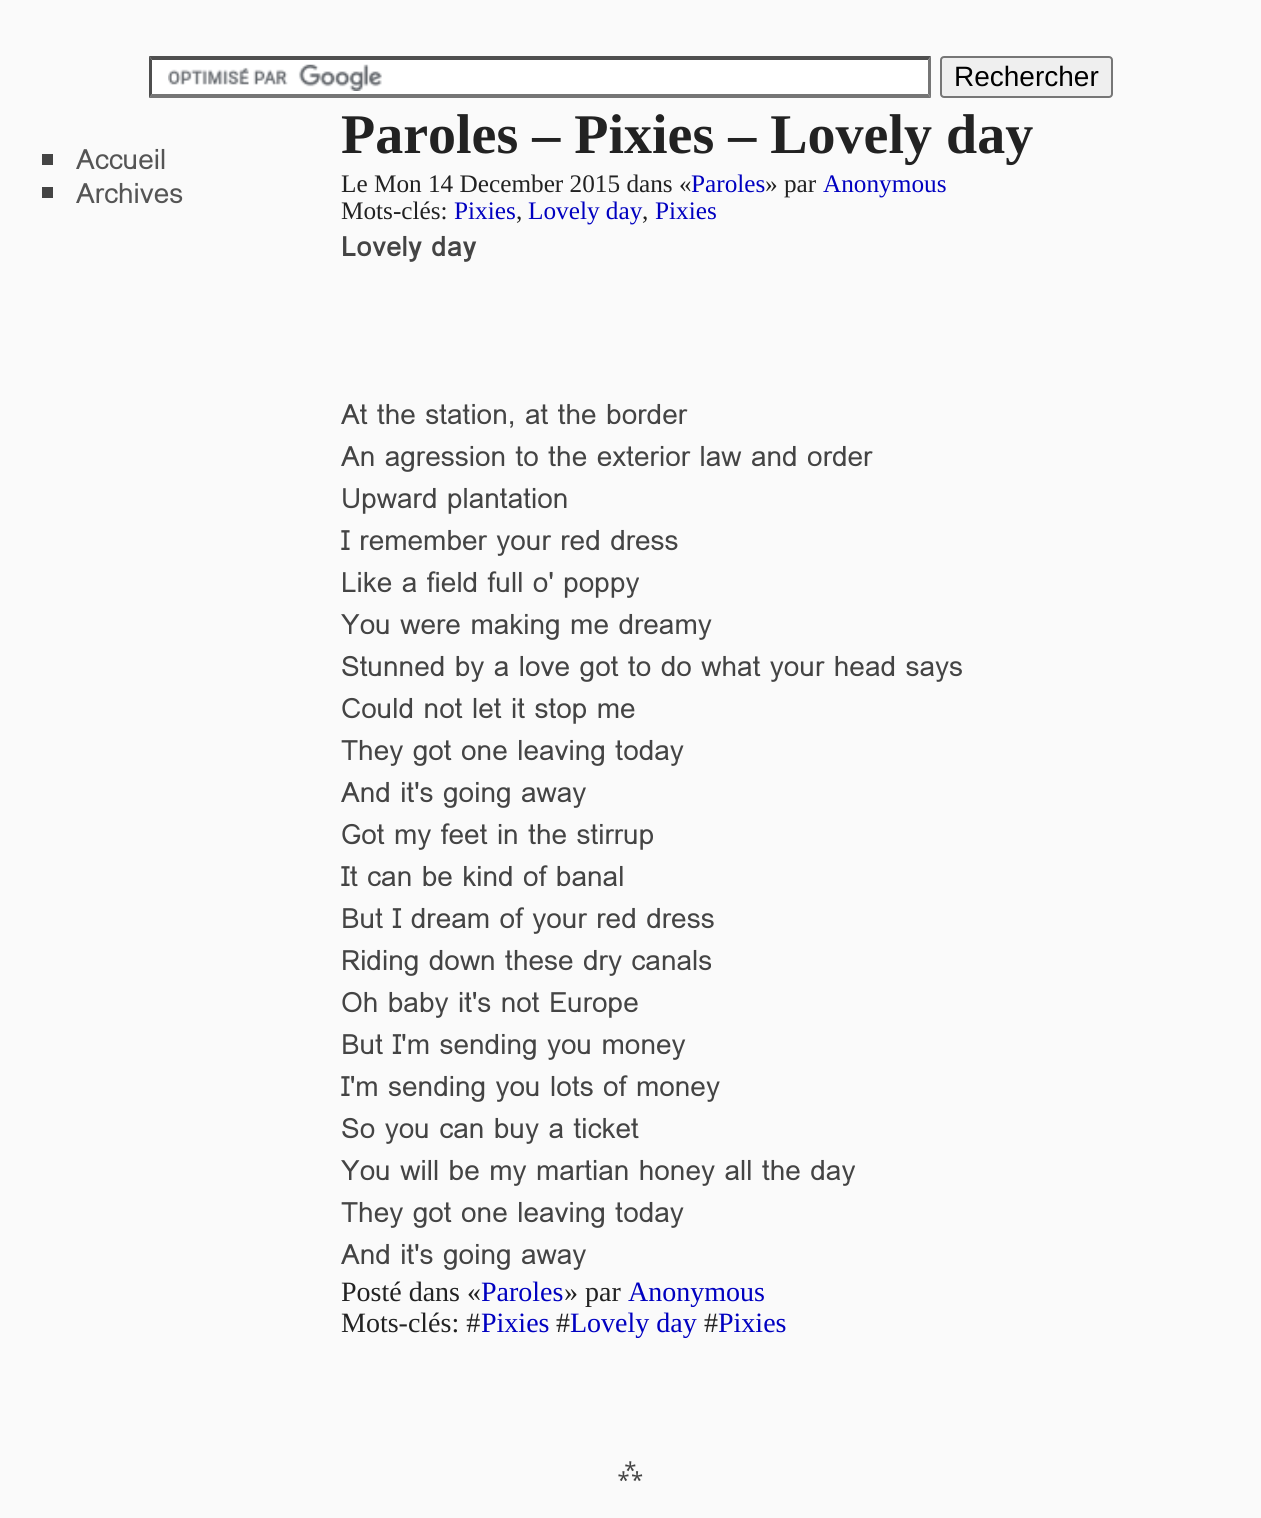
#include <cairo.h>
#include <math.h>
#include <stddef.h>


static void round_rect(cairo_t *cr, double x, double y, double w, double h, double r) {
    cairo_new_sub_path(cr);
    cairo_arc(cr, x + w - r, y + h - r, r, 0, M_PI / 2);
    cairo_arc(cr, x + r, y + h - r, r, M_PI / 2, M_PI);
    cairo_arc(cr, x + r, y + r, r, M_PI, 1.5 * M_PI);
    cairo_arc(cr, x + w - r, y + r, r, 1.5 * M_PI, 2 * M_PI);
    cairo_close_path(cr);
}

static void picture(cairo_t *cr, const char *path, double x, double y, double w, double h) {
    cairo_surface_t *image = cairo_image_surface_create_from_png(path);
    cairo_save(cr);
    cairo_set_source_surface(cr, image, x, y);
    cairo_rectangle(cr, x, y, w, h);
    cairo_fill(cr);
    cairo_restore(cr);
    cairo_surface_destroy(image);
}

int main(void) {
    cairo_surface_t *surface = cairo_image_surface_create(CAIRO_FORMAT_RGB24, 1261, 1518);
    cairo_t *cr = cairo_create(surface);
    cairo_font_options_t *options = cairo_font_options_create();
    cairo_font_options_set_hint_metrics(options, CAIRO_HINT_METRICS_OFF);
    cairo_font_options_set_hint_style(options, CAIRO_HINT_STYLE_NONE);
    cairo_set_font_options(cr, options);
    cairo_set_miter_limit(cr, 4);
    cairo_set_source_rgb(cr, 0.98, 0.98, 0.98);
    cairo_paint(cr);
    cairo_set_source_rgb(cr, 1, 1, 1);
    cairo_rectangle(cr, 149, 56, 782, 42);
    cairo_fill(cr);
    picture(cr, "img1.png", 168, 64, 214, 27);
    cairo_set_source_rgb(cr, 0.31, 0.31, 0.31);
    cairo_new_path(cr);
    cairo_move_to(cr, 149, 56);
    cairo_line_to(cr, 931, 56);
    cairo_line_to(cr, 928, 60);
    cairo_line_to(cr, 152, 60);
    cairo_close_path(cr);
    cairo_fill(cr);
    cairo_set_source_rgb(cr, 0.463, 0.463, 0.463);
    cairo_new_path(cr);
    cairo_move_to(cr, 931, 56);
    cairo_line_to(cr, 931, 98);
    cairo_line_to(cr, 928, 94);
    cairo_line_to(cr, 928, 60);
    cairo_close_path(cr);
    cairo_fill(cr);
    cairo_new_path(cr);
    cairo_move_to(cr, 931, 98);
    cairo_line_to(cr, 149, 98);
    cairo_line_to(cr, 152, 94);
    cairo_line_to(cr, 928, 94);
    cairo_close_path(cr);
    cairo_fill(cr);
    cairo_set_source_rgb(cr, 0.31, 0.31, 0.31);
    cairo_new_path(cr);
    cairo_move_to(cr, 149, 98);
    cairo_line_to(cr, 149, 56);
    cairo_line_to(cr, 152, 60);
    cairo_line_to(cr, 152, 94);
    cairo_close_path(cr);
    cairo_fill(cr);
    cairo_set_source_rgb(cr, 0.937, 0.937, 0.937);
    round_rect(cr, 941, 57, 171, 40, 3);
    cairo_fill_preserve(cr);
    cairo_set_source_rgb(cr, 0.463, 0.463, 0.463);
    cairo_stroke(cr);
    cairo_select_font_face(cr, "Liberation Sans", CAIRO_FONT_SLANT_NORMAL, CAIRO_FONT_WEIGHT_NORMAL);
    cairo_set_font_size(cr, 28);
    cairo_set_source_rgb(cr, 0, 0, 0);
    cairo_move_to(cr, 954, 86);
    cairo_show_text(cr, "Rechercher");
    cairo_set_source_rgb(cr, 0.267, 0.267, 0.267);
    cairo_rectangle(cr, 42, 154, 11, 11);
    cairo_fill(cr);
    cairo_select_font_face(cr, "Loma", CAIRO_FONT_SLANT_NORMAL, CAIRO_FONT_WEIGHT_NORMAL);
    cairo_set_source_rgb(cr, 0.333, 0.333, 0.333);
    cairo_move_to(cr, 76, 169);
    cairo_show_text(cr, "Accueil");
    cairo_set_source_rgb(cr, 0.267, 0.267, 0.267);
    cairo_rectangle(cr, 42, 187, 11, 11);
    cairo_fill(cr);
    cairo_set_source_rgb(cr, 0.333, 0.333, 0.333);
    cairo_move_to(cr, 76, 203);
    cairo_show_text(cr, "Archives");
    cairo_select_font_face(cr, "Liberation Serif", CAIRO_FONT_SLANT_NORMAL, CAIRO_FONT_WEIGHT_BOLD);
    cairo_set_font_size(cr, 56);
    cairo_set_source_rgb(cr, 0.133, 0.133, 0.133);
    cairo_move_to(cr, 341, 153);
    cairo_show_text(cr, "Paroles – Pixies – Lovely day");
    cairo_select_font_face(cr, "Liberation Serif", CAIRO_FONT_SLANT_NORMAL, CAIRO_FONT_WEIGHT_NORMAL);
    cairo_set_font_size(cr, 25.25);
    cairo_move_to(cr, 341, 192);
    cairo_show_text(cr, "Le Mon 14 December 2015 dans «");
    cairo_set_source_rgb(cr, 0, 0, 0.753);
    cairo_move_to(cr, 691, 192);
    cairo_show_text(cr, "Paroles");
    cairo_set_source_rgb(cr, 0.133, 0.133, 0.133);
    cairo_move_to(cr, 765, 192);
    cairo_show_text(cr, "» par");
    cairo_set_source_rgb(cr, 0, 0, 0.753);
    cairo_move_to(cr, 823, 192);
    cairo_show_text(cr, "Anonymous");
    cairo_set_source_rgb(cr, 0.133, 0.133, 0.133);
    cairo_move_to(cr, 341, 219);
    cairo_show_text(cr, "Mots-clés:");
    cairo_set_source_rgb(cr, 0, 0, 0.753);
    cairo_move_to(cr, 454, 219);
    cairo_show_text(cr, "Pixies");
    cairo_set_source_rgb(cr, 0.133, 0.133, 0.133);
    cairo_move_to(cr, 516, 219);
    cairo_show_text(cr, ",");
    cairo_set_source_rgb(cr, 0, 0, 0.753);
    cairo_move_to(cr, 528, 219);
    cairo_show_text(cr, "Lovely day");
    cairo_set_source_rgb(cr, 0.133, 0.133, 0.133);
    cairo_move_to(cr, 642, 219);
    cairo_show_text(cr, ",");
    cairo_set_source_rgb(cr, 0, 0, 0.753);
    cairo_move_to(cr, 655, 219);
    cairo_show_text(cr, "Pixies");
    cairo_select_font_face(cr, "Loma", CAIRO_FONT_SLANT_NORMAL, CAIRO_FONT_WEIGHT_BOLD);
    cairo_set_font_size(cr, 28);
    cairo_set_source_rgb(cr, 0.267, 0.267, 0.267);
    cairo_move_to(cr, 341, 256);
    cairo_show_text(cr, "Lovely day");
    cairo_select_font_face(cr, "Loma", CAIRO_FONT_SLANT_NORMAL, CAIRO_FONT_WEIGHT_NORMAL);
    cairo_move_to(cr, 341, 424);
    cairo_show_text(cr, "At the station, at the border");
    cairo_move_to(cr, 341, 466);
    cairo_show_text(cr, "An agression to the exterior law and order");
    cairo_move_to(cr, 341, 508);
    cairo_show_text(cr, "Upward plantation");
    cairo_move_to(cr, 341, 550);
    cairo_show_text(cr, "I remember your red dress");
    cairo_move_to(cr, 341, 592);
    cairo_show_text(cr, "Like a field full o' poppy");
    cairo_move_to(cr, 341, 634);
    cairo_show_text(cr, "You were making me dreamy");
    cairo_move_to(cr, 341, 676);
    cairo_show_text(cr, "Stunned by a love got to do what your head says");
    cairo_move_to(cr, 341, 718);
    cairo_show_text(cr, "Could not let it stop me");
    cairo_move_to(cr, 341, 760);
    cairo_show_text(cr, "They got one leaving today");
    cairo_move_to(cr, 341, 802);
    cairo_show_text(cr, "And it's going away");
    cairo_move_to(cr, 341, 844);
    cairo_show_text(cr, "Got my feet in the stirrup");
    cairo_move_to(cr, 341, 886);
    cairo_show_text(cr, "It can be kind of banal");
    cairo_move_to(cr, 341, 928);
    cairo_show_text(cr, "But I dream of your red dress");
    cairo_move_to(cr, 341, 970);
    cairo_show_text(cr, "Riding down these dry canals");
    cairo_move_to(cr, 341, 1012);
    cairo_show_text(cr, "Oh baby it's not Europe");
    cairo_move_to(cr, 341, 1054);
    cairo_show_text(cr, "But I'm sending you money");
    cairo_move_to(cr, 341, 1096);
    cairo_show_text(cr, "I'm sending you lots of money");
    cairo_move_to(cr, 341, 1138);
    cairo_show_text(cr, "So you can buy a ticket");
    cairo_move_to(cr, 341, 1180);
    cairo_show_text(cr, "You will be my martian honey all the day");
    cairo_move_to(cr, 341, 1222);
    cairo_show_text(cr, "They got one leaving today");
    cairo_move_to(cr, 341, 1264);
    cairo_show_text(cr, "And it's going away");
    cairo_select_font_face(cr, "Liberation Serif", CAIRO_FONT_SLANT_NORMAL, CAIRO_FONT_WEIGHT_NORMAL);
    cairo_set_source_rgb(cr, 0.133, 0.133, 0.133);
    cairo_move_to(cr, 341, 1301);
    cairo_show_text(cr, "Posté dans «");
    cairo_set_source_rgb(cr, 0, 0, 0.753);
    cairo_move_to(cr, 481, 1301);
    cairo_show_text(cr, "Paroles");
    cairo_set_source_rgb(cr, 0.133, 0.133, 0.133);
    cairo_move_to(cr, 564, 1301);
    cairo_show_text(cr, "» par");
    cairo_set_source_rgb(cr, 0, 0, 0.753);
    cairo_move_to(cr, 628, 1301);
    cairo_show_text(cr, "Anonymous");
    cairo_set_source_rgb(cr, 0.133, 0.133, 0.133);
    cairo_move_to(cr, 341, 1332);
    cairo_show_text(cr, "Mots-clés: #");
    cairo_set_source_rgb(cr, 0, 0, 0.753);
    cairo_move_to(cr, 481, 1332);
    cairo_show_text(cr, "Pixies");
    cairo_set_source_rgb(cr, 0.133, 0.133, 0.133);
    cairo_move_to(cr, 556, 1332);
    cairo_show_text(cr, "#");
    cairo_set_source_rgb(cr, 0, 0, 0.753);
    cairo_move_to(cr, 570, 1332);
    cairo_show_text(cr, "Lovely day");
    cairo_set_source_rgb(cr, 0.133, 0.133, 0.133);
    cairo_move_to(cr, 704, 1332);
    cairo_show_text(cr, "#");
    cairo_set_source_rgb(cr, 0, 0, 0.753);
    cairo_move_to(cr, 718, 1332);
    cairo_show_text(cr, "Pixies");
    cairo_select_font_face(cr, "Noto Sans", CAIRO_FONT_SLANT_NORMAL, CAIRO_FONT_WEIGHT_NORMAL);
    cairo_set_font_size(cr, 22);
    cairo_set_source_rgb(cr, 0.267, 0.267, 0.267);
    cairo_move_to(cr, 618, 1478);
    cairo_show_text(cr, "⁂");
    cairo_surface_write_to_png(surface, "page.png");
    cairo_font_options_destroy(options);
    cairo_destroy(cr);
    cairo_surface_destroy(surface);
    return 0;
}
